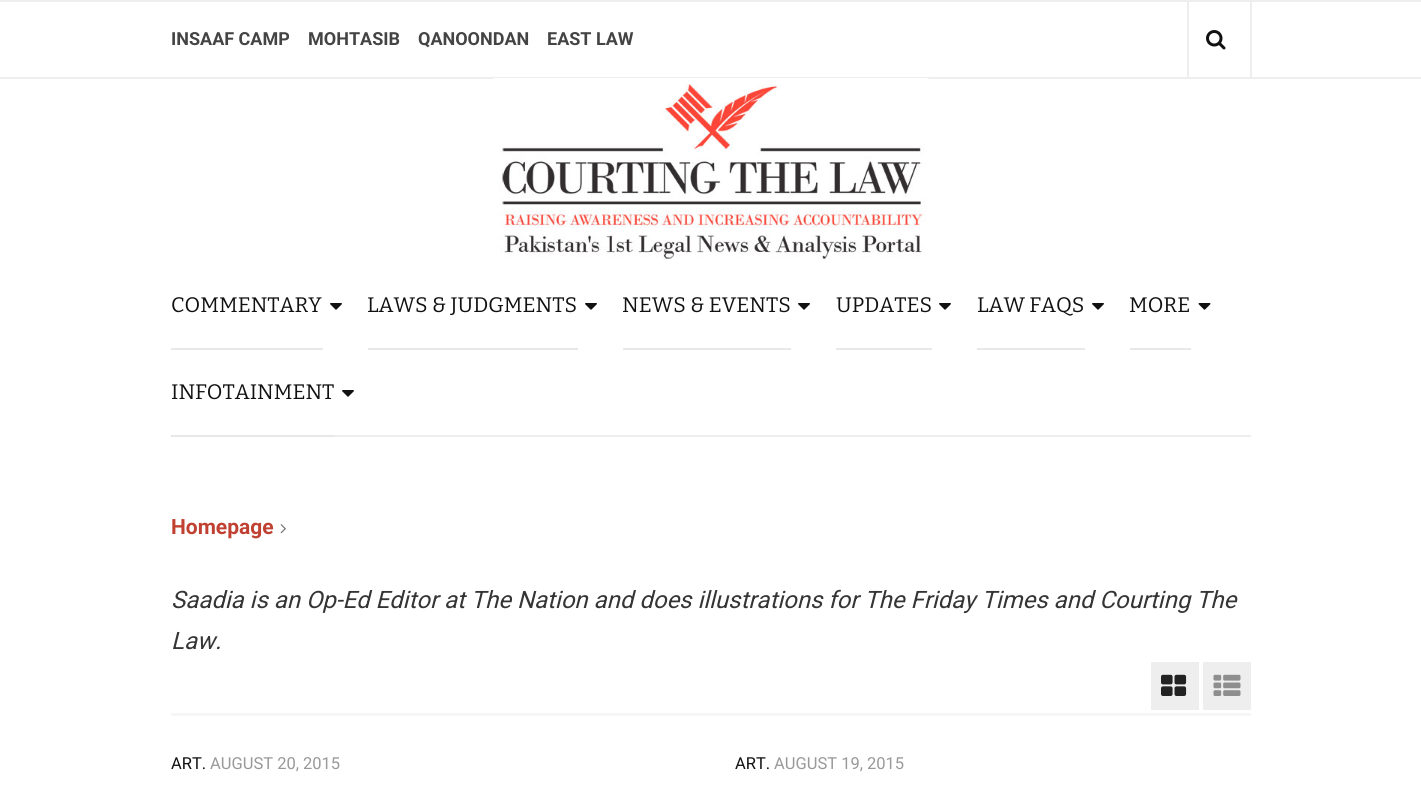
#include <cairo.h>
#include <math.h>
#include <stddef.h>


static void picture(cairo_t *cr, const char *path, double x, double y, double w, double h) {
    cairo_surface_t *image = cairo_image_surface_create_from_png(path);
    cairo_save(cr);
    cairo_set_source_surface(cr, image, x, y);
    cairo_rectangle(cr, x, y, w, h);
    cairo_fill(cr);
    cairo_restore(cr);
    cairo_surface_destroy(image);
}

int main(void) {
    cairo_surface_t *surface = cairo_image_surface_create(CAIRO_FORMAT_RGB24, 1421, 811);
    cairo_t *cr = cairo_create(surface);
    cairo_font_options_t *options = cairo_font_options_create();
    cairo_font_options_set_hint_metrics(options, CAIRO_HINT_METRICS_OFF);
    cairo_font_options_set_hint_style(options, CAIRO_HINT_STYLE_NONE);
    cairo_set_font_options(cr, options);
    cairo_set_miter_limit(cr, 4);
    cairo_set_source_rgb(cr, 1, 1, 1);
    cairo_paint(cr);
    cairo_set_source_rgb(cr, 0.933, 0.933, 0.933);
    cairo_rectangle(cr, 0, 0, 1421, 2);
    cairo_fill(cr);
    cairo_rectangle(cr, 0, 77, 1421, 2);
    cairo_fill(cr);
    cairo_select_font_face(cr, "Roboto", CAIRO_FONT_SLANT_NORMAL, CAIRO_FONT_WEIGHT_BOLD);
    cairo_set_font_size(cr, 18);
    cairo_set_source_rgb(cr, 0.267, 0.267, 0.267);
    cairo_move_to(cr, 171, 45);
    cairo_show_text(cr, "INSAAF CAMP");
    cairo_move_to(cr, 308, 45);
    cairo_show_text(cr, "MOHTASIB");
    cairo_move_to(cr, 418, 45);
    cairo_show_text(cr, "QANOONDAN");
    cairo_move_to(cr, 547, 45);
    cairo_show_text(cr, "EAST LAW");
    cairo_set_source_rgb(cr, 0.933, 0.933, 0.933);
    cairo_rectangle(cr, 1187, 2, 2, 75);
    cairo_fill(cr);
    cairo_rectangle(cr, 1250, 2, 2, 75);
    cairo_fill(cr);
    picture(cr, "img1.png", 1206, 30, 20, 20);
    picture(cr, "img2.png", 493, 78, 436, 182);
    cairo_rectangle(cr, 335, 435, 916, 2);
    cairo_fill(cr);
    cairo_set_source_rgb(cr, 0.91, 0.91, 0.91);
    cairo_rectangle(cr, 171, 348, 152, 2);
    cairo_fill(cr);
    cairo_select_font_face(cr, "Bitter Thin", CAIRO_FONT_SLANT_NORMAL, CAIRO_FONT_WEIGHT_NORMAL);
    cairo_set_font_size(cr, 21);
    cairo_set_source_rgb(cr, 0.067, 0.067, 0.067);
    cairo_move_to(cr, 171, 312);
    cairo_show_text(cr, "COMMENTARY");
    picture(cr, "img3.png", 330, 303, 12, 7);
    cairo_set_source_rgb(cr, 0.91, 0.91, 0.91);
    cairo_rectangle(cr, 368, 348, 210, 2);
    cairo_fill(cr);
    cairo_set_source_rgb(cr, 0.067, 0.067, 0.067);
    cairo_move_to(cr, 367, 312);
    cairo_show_text(cr, "LAWS & JUDGMENTS");
    picture(cr, "img3.png", 585, 303, 12, 7);
    cairo_set_source_rgb(cr, 0.91, 0.91, 0.91);
    cairo_rectangle(cr, 623, 348, 168, 2);
    cairo_fill(cr);
    cairo_set_source_rgb(cr, 0.067, 0.067, 0.067);
    cairo_move_to(cr, 622, 312);
    cairo_show_text(cr, "NEWS & EVENTS");
    picture(cr, "img3.png", 798, 303, 12, 7);
    cairo_set_source_rgb(cr, 0.91, 0.91, 0.91);
    cairo_rectangle(cr, 836, 348, 96, 2);
    cairo_fill(cr);
    cairo_set_source_rgb(cr, 0.067, 0.067, 0.067);
    cairo_move_to(cr, 836, 312);
    cairo_show_text(cr, "UPDATES");
    picture(cr, "img3.png", 939, 303, 12, 7);
    cairo_set_source_rgb(cr, 0.91, 0.91, 0.91);
    cairo_rectangle(cr, 977, 348, 108, 2);
    cairo_fill(cr);
    cairo_set_source_rgb(cr, 0.067, 0.067, 0.067);
    cairo_move_to(cr, 977, 312);
    cairo_show_text(cr, "LAW FAQS");
    picture(cr, "img3.png", 1092, 303, 12, 7);
    cairo_set_source_rgb(cr, 0.91, 0.91, 0.91);
    cairo_rectangle(cr, 1130, 348, 61, 2);
    cairo_fill(cr);
    cairo_set_source_rgb(cr, 0.067, 0.067, 0.067);
    cairo_move_to(cr, 1129, 312);
    cairo_show_text(cr, "MORE");
    picture(cr, "img4.png", 1198, 303, 13, 7);
    cairo_set_source_rgb(cr, 0.91, 0.91, 0.91);
    cairo_rectangle(cr, 171, 435, 164, 2);
    cairo_fill(cr);
    cairo_set_source_rgb(cr, 0.067, 0.067, 0.067);
    cairo_move_to(cr, 171, 399);
    cairo_show_text(cr, "INFOTAINMENT");
    picture(cr, "img3.png", 342, 390, 12, 7);
    cairo_select_font_face(cr, "Roboto", CAIRO_FONT_SLANT_NORMAL, CAIRO_FONT_WEIGHT_BOLD);
    cairo_set_source_rgb(cr, 0.753, 0.255, 0.192);
    cairo_move_to(cr, 171, 534);
    cairo_show_text(cr, "Homepage");
    picture(cr, "img5.png", 280, 524, 6, 10);
    cairo_select_font_face(cr, "Roboto", CAIRO_FONT_SLANT_ITALIC, CAIRO_FONT_WEIGHT_NORMAL);
    cairo_set_font_size(cr, 23.95);
    cairo_set_source_rgb(cr, 0.208, 0.208, 0.208);
    cairo_move_to(cr, 171, 608);
    cairo_show_text(cr, "Saadia is an Op-Ed Editor at The Nation and does illustrations for The Friday Times and Courting The");
    cairo_move_to(cr, 171, 649);
    cairo_show_text(cr, "Law.");
    cairo_set_source_rgb(cr, 0.961, 0.961, 0.961);
    cairo_rectangle(cr, 171, 713, 1080, 3);
    cairo_fill(cr);
    cairo_set_source_rgb(cr, 0.933, 0.933, 0.933);
    cairo_rectangle(cr, 1151, 662, 48, 48);
    cairo_fill(cr);
    picture(cr, "img6.png", 1161, 674, 26, 22);
    cairo_rectangle(cr, 1203, 662, 48, 48);
    cairo_fill(cr);
    picture(cr, "img7.png", 1213, 674, 28, 22);
    cairo_select_font_face(cr, "Roboto", CAIRO_FONT_SLANT_NORMAL, CAIRO_FONT_WEIGHT_NORMAL);
    cairo_set_font_size(cr, 16.5);
    cairo_set_source_rgb(cr, 0.067, 0.067, 0.067);
    cairo_move_to(cr, 171, 769);
    cairo_show_text(cr, "ART.");
    cairo_set_source_rgb(cr, 0.6, 0.6, 0.6);
    cairo_move_to(cr, 210, 769);
    cairo_show_text(cr, "AUGUST 20, 2015");
    cairo_set_source_rgb(cr, 0.067, 0.067, 0.067);
    cairo_move_to(cr, 735, 769);
    cairo_show_text(cr, "ART.");
    cairo_set_source_rgb(cr, 0.6, 0.6, 0.6);
    cairo_move_to(cr, 774, 769);
    cairo_show_text(cr, "AUGUST 19, 2015");
    cairo_surface_write_to_png(surface, "page.png");
    cairo_font_options_destroy(options);
    cairo_destroy(cr);
    cairo_surface_destroy(surface);
    return 0;
}
